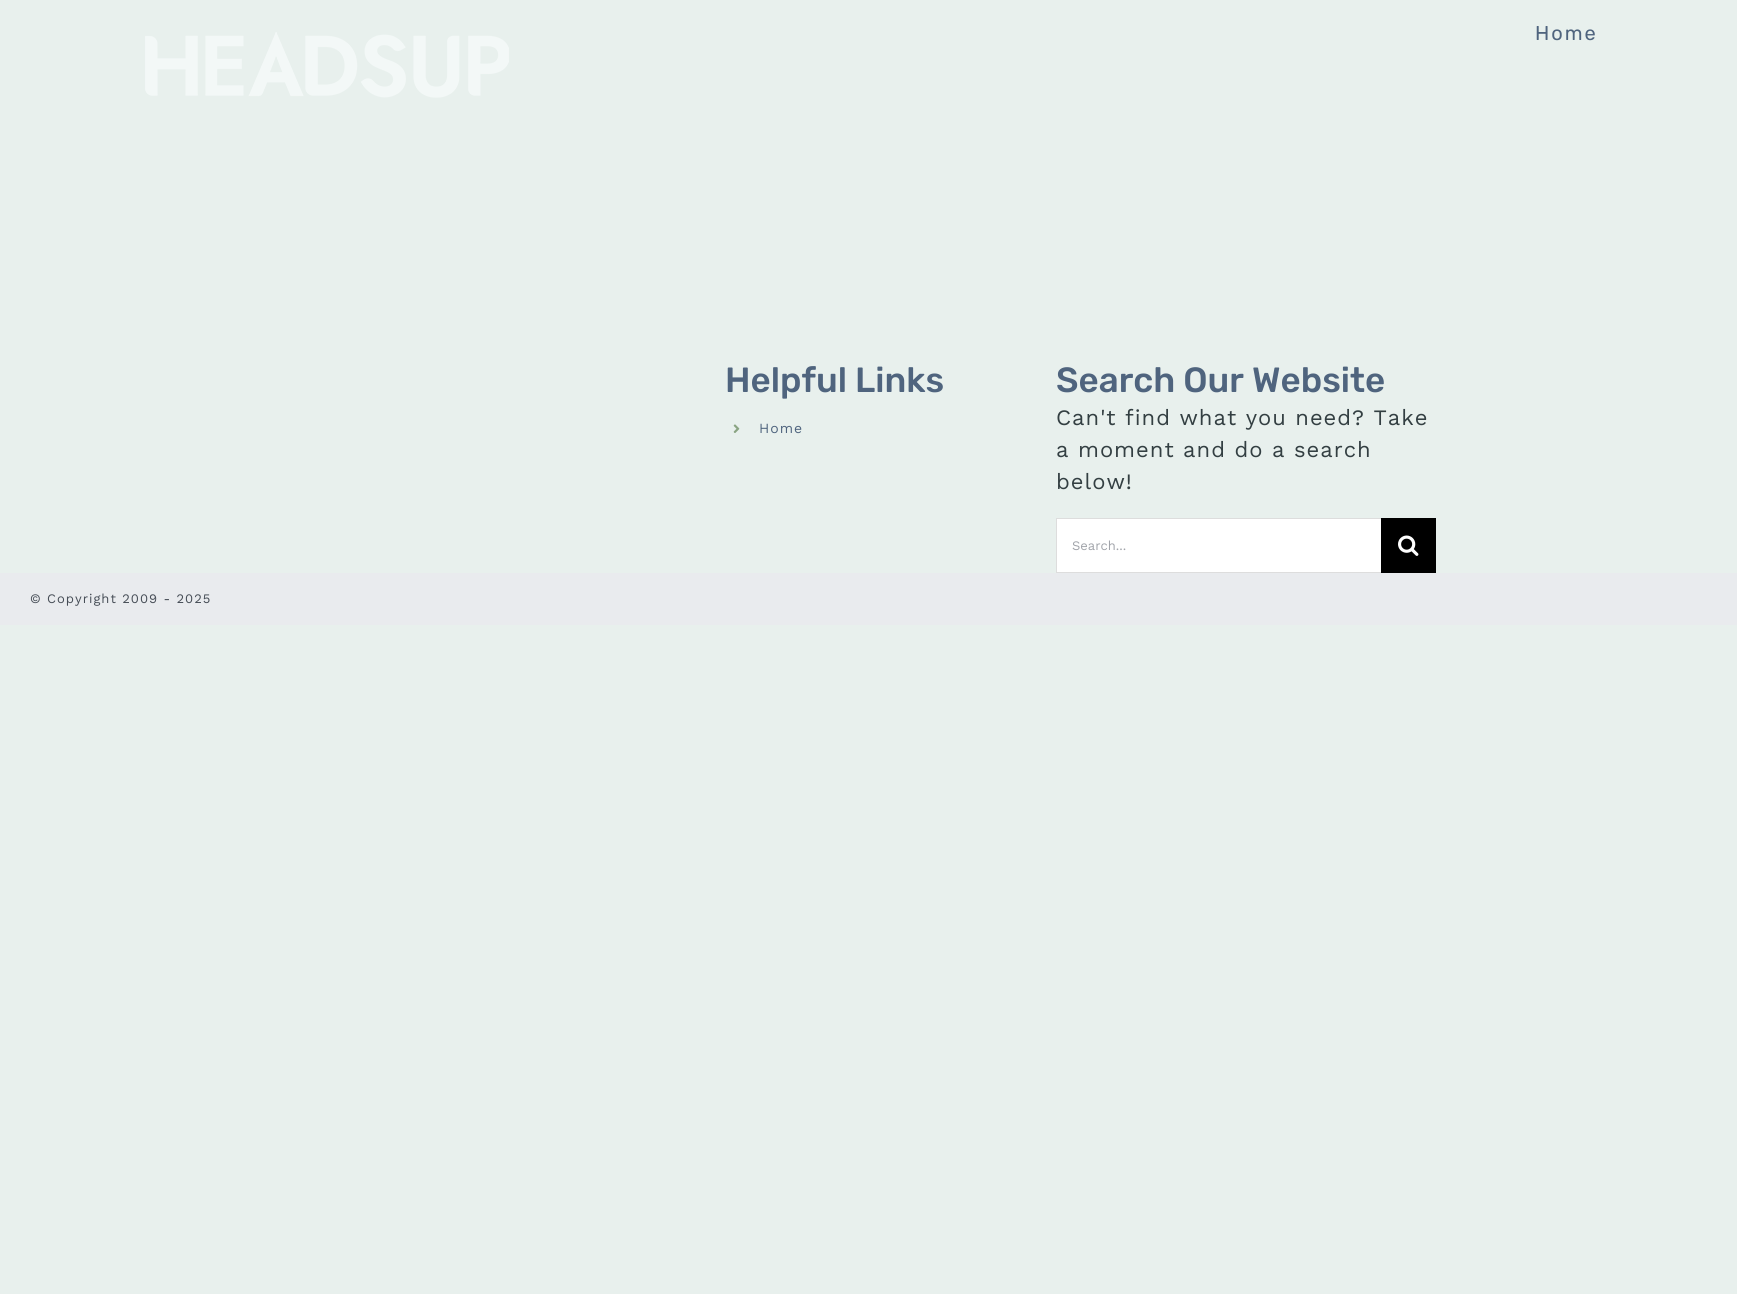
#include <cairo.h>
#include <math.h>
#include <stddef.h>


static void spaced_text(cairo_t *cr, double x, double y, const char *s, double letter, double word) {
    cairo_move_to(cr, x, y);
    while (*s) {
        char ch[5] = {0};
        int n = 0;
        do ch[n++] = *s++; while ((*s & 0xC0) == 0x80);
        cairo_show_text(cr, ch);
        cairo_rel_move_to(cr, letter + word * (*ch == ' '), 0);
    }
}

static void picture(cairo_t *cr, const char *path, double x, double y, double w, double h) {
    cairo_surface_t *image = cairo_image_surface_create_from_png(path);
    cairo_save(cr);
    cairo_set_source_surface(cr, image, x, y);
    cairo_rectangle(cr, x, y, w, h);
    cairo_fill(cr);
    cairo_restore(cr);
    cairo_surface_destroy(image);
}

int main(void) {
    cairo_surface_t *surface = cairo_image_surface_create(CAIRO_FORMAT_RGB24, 1737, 1294);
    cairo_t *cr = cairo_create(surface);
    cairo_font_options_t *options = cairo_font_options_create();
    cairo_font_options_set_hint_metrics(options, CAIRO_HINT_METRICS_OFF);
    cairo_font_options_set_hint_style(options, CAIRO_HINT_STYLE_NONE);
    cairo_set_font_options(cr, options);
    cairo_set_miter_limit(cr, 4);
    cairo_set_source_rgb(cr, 0.91, 0.941, 0.929);
    cairo_paint(cr);
    picture(cr, "img1.png", 145, 32, 364, 66);
    cairo_select_font_face(cr, "Rubik", CAIRO_FONT_SLANT_NORMAL, CAIRO_FONT_WEIGHT_NORMAL);
    cairo_set_font_size(cr, 20);
    cairo_set_source_rgb(cr, 0.31, 0.392, 0.494);
    spaced_text(cr, 1535, 40, "Home", 2, 0);
    cairo_select_font_face(cr, "Rubik Medium", CAIRO_FONT_SLANT_NORMAL, CAIRO_FONT_WEIGHT_NORMAL);
    cairo_set_font_size(cr, 35);
    cairo_move_to(cr, 725, 392);
    cairo_show_text(cr, "Helpful Links");
    picture(cr, "img2.png", 733, 424, 7, 9);
    cairo_select_font_face(cr, "Work Sans", CAIRO_FONT_SLANT_NORMAL, CAIRO_FONT_WEIGHT_NORMAL);
    cairo_set_font_size(cr, 14);
    spaced_text(cr, 759, 433, "Home", 1, 0);
    cairo_select_font_face(cr, "Rubik Medium", CAIRO_FONT_SLANT_NORMAL, CAIRO_FONT_WEIGHT_NORMAL);
    cairo_set_font_size(cr, 35);
    cairo_move_to(cr, 1056, 392);
    cairo_show_text(cr, "Search Our Website");
    cairo_select_font_face(cr, "Work Sans", CAIRO_FONT_SLANT_NORMAL, CAIRO_FONT_WEIGHT_NORMAL);
    cairo_set_font_size(cr, 22);
    cairo_set_source_rgb(cr, 0.2, 0.247, 0.259);
    spaced_text(cr, 1056, 425, "Can't find what you need? Take", 1, 0);
    spaced_text(cr, 1056, 457, "a moment and do a search", 1, 0);
    spaced_text(cr, 1056, 489, "below!", 1, 0);
    cairo_set_source_rgb(cr, 1, 1, 1);
    cairo_rectangle(cr, 1057, 519, 324, 53);
    cairo_fill(cr);
    cairo_set_source_rgb(cr, 0.867, 0.867, 0.867);
    cairo_rectangle(cr, 1056, 518, 325, 1);
    cairo_fill(cr);
    cairo_rectangle(cr, 1056, 572, 325, 1);
    cairo_fill(cr);
    cairo_rectangle(cr, 1056, 518, 1, 55);
    cairo_fill(cr);
    cairo_set_font_size(cr, 13);
    cairo_set_source_rgb(cr, 0.631, 0.643, 0.667);
    cairo_move_to(cr, 1072, 550);
    cairo_show_text(cr, "Search...");
    cairo_set_source_rgb(cr, 0, 0, 0);
    cairo_rectangle(cr, 1381, 518, 55, 55);
    cairo_fill(cr);
    picture(cr, "img3.png", 1398, 535, 21, 21);
    cairo_set_source_rgb(cr, 0.914, 0.918, 0.933);
    cairo_rectangle(cr, 0, 573, 1737, 52);
    cairo_fill(cr);
    cairo_set_source_rgb(cr, 0.275, 0.302, 0.337);
    spaced_text(cr, 30, 603, "© Copyright 2009 - 2025", 1, 0);
    cairo_surface_write_to_png(surface, "page.png");
    cairo_font_options_destroy(options);
    cairo_destroy(cr);
    cairo_surface_destroy(surface);
    return 0;
}
